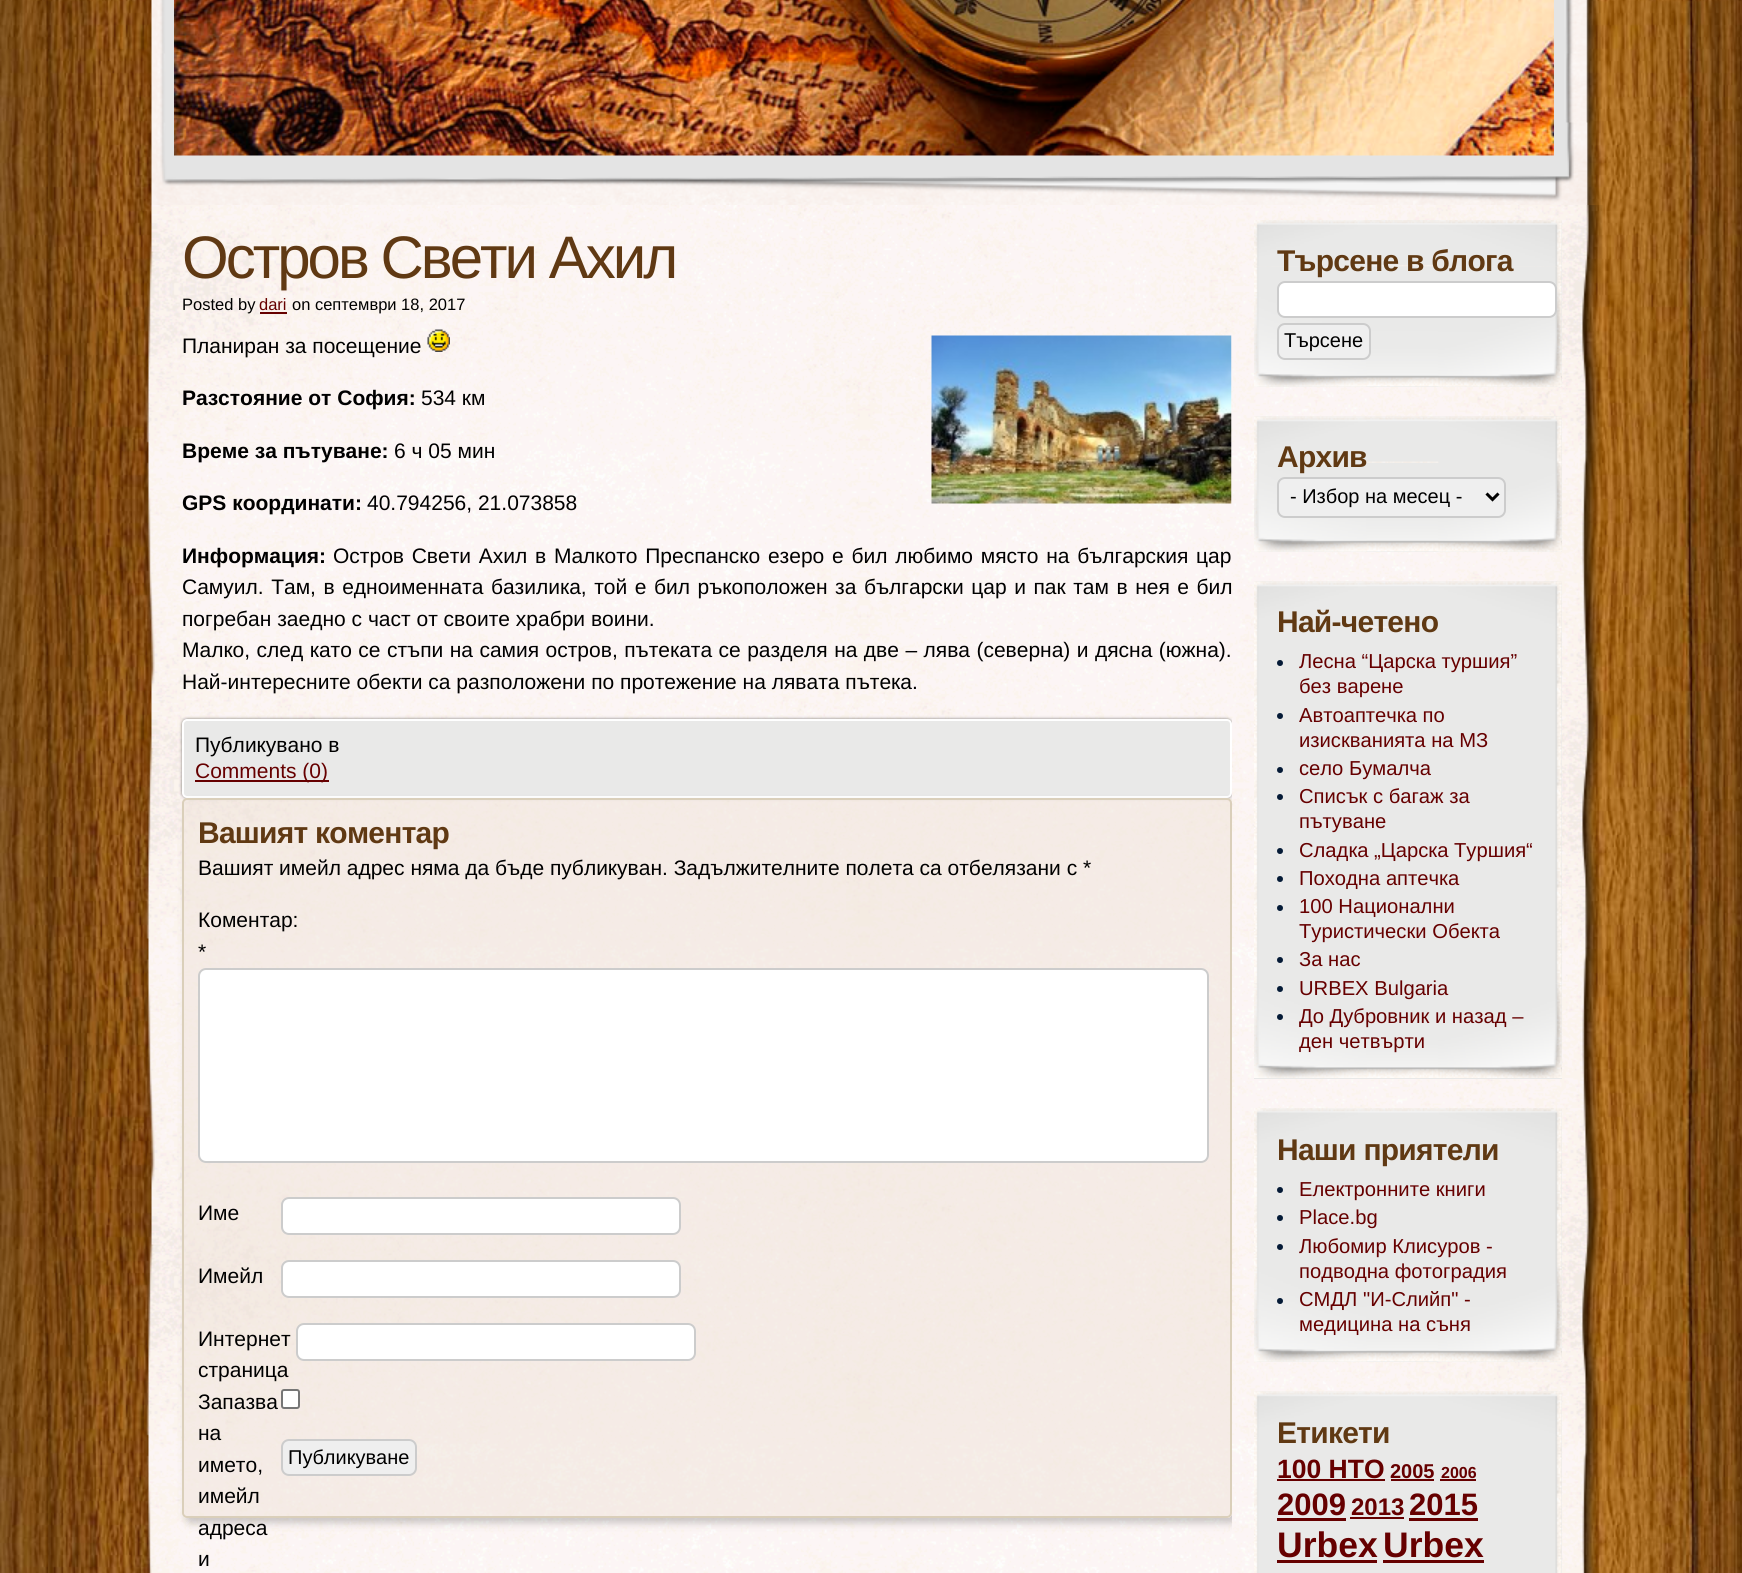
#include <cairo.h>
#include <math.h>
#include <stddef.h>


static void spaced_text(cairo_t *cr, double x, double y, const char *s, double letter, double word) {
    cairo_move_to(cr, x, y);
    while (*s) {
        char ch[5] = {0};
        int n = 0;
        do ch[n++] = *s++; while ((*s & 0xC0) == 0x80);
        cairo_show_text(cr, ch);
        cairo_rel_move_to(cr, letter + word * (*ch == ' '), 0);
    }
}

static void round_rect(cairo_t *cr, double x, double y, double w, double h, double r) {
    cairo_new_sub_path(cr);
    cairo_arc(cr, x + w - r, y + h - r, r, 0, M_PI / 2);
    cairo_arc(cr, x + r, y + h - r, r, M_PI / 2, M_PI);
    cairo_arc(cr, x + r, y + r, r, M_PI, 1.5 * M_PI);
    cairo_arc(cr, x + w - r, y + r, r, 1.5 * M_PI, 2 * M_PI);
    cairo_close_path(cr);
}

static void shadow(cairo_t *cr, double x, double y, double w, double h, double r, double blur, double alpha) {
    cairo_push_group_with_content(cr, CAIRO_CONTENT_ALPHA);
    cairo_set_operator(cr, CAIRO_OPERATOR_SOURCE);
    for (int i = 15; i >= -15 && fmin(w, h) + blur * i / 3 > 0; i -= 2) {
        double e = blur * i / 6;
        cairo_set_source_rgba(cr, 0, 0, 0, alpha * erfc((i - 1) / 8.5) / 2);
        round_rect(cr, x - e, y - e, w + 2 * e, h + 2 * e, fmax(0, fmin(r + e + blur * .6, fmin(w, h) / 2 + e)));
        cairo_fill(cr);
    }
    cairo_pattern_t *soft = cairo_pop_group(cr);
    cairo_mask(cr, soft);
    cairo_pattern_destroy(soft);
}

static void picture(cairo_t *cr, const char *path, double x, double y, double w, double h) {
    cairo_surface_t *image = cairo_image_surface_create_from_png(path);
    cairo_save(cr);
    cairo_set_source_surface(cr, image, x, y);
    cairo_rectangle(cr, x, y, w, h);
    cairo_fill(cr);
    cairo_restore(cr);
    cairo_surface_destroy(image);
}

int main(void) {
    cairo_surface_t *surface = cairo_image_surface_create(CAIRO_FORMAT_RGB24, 1742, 1573);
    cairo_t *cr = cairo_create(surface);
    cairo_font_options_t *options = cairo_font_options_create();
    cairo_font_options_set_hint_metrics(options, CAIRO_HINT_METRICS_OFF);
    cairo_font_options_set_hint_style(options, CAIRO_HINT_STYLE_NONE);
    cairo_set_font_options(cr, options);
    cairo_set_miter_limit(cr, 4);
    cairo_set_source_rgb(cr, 1, 1, 1);
    cairo_paint(cr);
    picture(cr, "img1.png", 0, 0, 1742, 1573);
    picture(cr, "img2.png", 0, 0, 1742, 1573);
    picture(cr, "img3.png", 147, 0, 1454, 205);
    picture(cr, "img4.png", 156, 122, 1432, 83);
    picture(cr, "img5.png", 174, 0, 1380, 156);
    picture(cr, "img6.png", 144, 205, 1459, 1368);
    cairo_select_font_face(cr, "Liberation Sans", CAIRO_FONT_SLANT_NORMAL, CAIRO_FONT_WEIGHT_NORMAL);
    cairo_set_font_size(cr, 60);
    cairo_set_source_rgb(cr, 0.376, 0.224, 0.075);
    spaced_text(cr, 182, 278, "Остров Свети Ахил", -3, 0);
    cairo_set_font_size(cr, 16.5);
    cairo_set_source_rgb(cr, 0, 0, 0);
    cairo_move_to(cr, 182, 310);
    cairo_show_text(cr, "Posted by");
    cairo_set_source_rgb(cr, 0.4, 0, 0);
    cairo_move_to(cr, 259, 310);
    cairo_show_text(cr, "dari");
    cairo_rectangle(cr, 260, 312, 27, 2);
    cairo_fill(cr);
    cairo_set_source_rgb(cr, 0, 0, 0);
    cairo_move_to(cr, 292, 310);
    cairo_show_text(cr, "on септември 18, 2017");
    cairo_set_font_size(cr, 21);
    cairo_move_to(cr, 182, 353);
    cairo_show_text(cr, "Планиран за посещение");
    picture(cr, "img7.png", 427, 329, 23, 23);
    picture(cr, "img8.png", 931, 335, 301, 169);
    cairo_select_font_face(cr, "Liberation Sans", CAIRO_FONT_SLANT_NORMAL, CAIRO_FONT_WEIGHT_BOLD);
    cairo_move_to(cr, 182, 405);
    cairo_show_text(cr, "Разстояние от София:");
    cairo_select_font_face(cr, "Liberation Sans", CAIRO_FONT_SLANT_NORMAL, CAIRO_FONT_WEIGHT_NORMAL);
    cairo_move_to(cr, 421, 405);
    cairo_show_text(cr, "534 км");
    cairo_select_font_face(cr, "Liberation Sans", CAIRO_FONT_SLANT_NORMAL, CAIRO_FONT_WEIGHT_BOLD);
    cairo_move_to(cr, 182, 458);
    cairo_show_text(cr, "Време за пътуване:");
    cairo_select_font_face(cr, "Liberation Sans", CAIRO_FONT_SLANT_NORMAL, CAIRO_FONT_WEIGHT_NORMAL);
    cairo_move_to(cr, 394, 458);
    cairo_show_text(cr, "6 ч 05 мин");
    cairo_select_font_face(cr, "Liberation Sans", CAIRO_FONT_SLANT_NORMAL, CAIRO_FONT_WEIGHT_BOLD);
    cairo_move_to(cr, 182, 510);
    cairo_show_text(cr, "GPS координати:");
    cairo_select_font_face(cr, "Liberation Sans", CAIRO_FONT_SLANT_NORMAL, CAIRO_FONT_WEIGHT_NORMAL);
    cairo_move_to(cr, 367, 510);
    cairo_show_text(cr, "40.794256, 21.073858");
    cairo_select_font_face(cr, "Liberation Sans", CAIRO_FONT_SLANT_NORMAL, CAIRO_FONT_WEIGHT_BOLD);
    cairo_move_to(cr, 182, 563);
    cairo_show_text(cr, "Информация:");
    cairo_select_font_face(cr, "Liberation Sans", CAIRO_FONT_SLANT_NORMAL, CAIRO_FONT_WEIGHT_NORMAL);
    spaced_text(cr, 333, 563, "Остров Свети Ахил в Малкото Преспанско езеро е бил любимо място на българския цар", 0, 1.9);
    spaced_text(cr, 182, 594, "Самуил. Там, в едноименната базилика, той е бил ръкоположен за български цар и пак там в нея е бил", 0, 1.7);
    cairo_move_to(cr, 182, 626);
    cairo_show_text(cr, "погребан заедно с част от своите храбри воини.");
    spaced_text(cr, 182, 657, "Малко, след като се стъпи на самия остров, пътеката се разделя на две – лява (северна) и дясна (южна).", 0, 0.6);
    cairo_move_to(cr, 182, 689);
    cairo_show_text(cr, "Най-интересните обекти са разположени по протежение на лявата пътека.");
    cairo_save(cr);
    cairo_rectangle(cr, 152, 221, 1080, 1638);
    cairo_clip(cr);
    cairo_set_source_rgb(cr, 0, 0, 0);
    shadow(cr, 182, 719, 1050, 79, 5, 1.5, 0.5);
    cairo_restore(cr);
    cairo_set_source_rgb(cr, 0.914, 0.914, 0.91);
    round_rect(cr, 183, 720, 1048, 77, 4);
    cairo_fill_preserve(cr);
    cairo_set_source_rgb(cr, 1, 1, 1);
    cairo_stroke(cr);
    cairo_set_source_rgb(cr, 0, 0, 0);
    cairo_move_to(cr, 195, 752);
    cairo_show_text(cr, "Публикувано в");
    cairo_set_source_rgb(cr, 0.4, 0, 0);
    cairo_rectangle(cr, 195, 780, 134, 2);
    cairo_fill(cr);
    cairo_move_to(cr, 195, 778);
    cairo_show_text(cr, "Comments (0)");
    cairo_save(cr);
    cairo_rectangle(cr, 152, 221, 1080, 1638);
    cairo_clip(cr);
    cairo_set_fill_rule(cr, CAIRO_FILL_RULE_EVEN_ODD);
    cairo_new_path(cr);
    cairo_move_to(cr, 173, 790);
    cairo_line_to(cr, 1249, 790);
    cairo_line_to(cr, 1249, 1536);
    cairo_line_to(cr, 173, 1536);
    cairo_close_path(cr);
    cairo_move_to(cr, 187, 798);
    cairo_line_to(cr, 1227, 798);
    cairo_curve_to(cr, 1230, 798, 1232, 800, 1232, 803);
    cairo_line_to(cr, 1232, 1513);
    cairo_curve_to(cr, 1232, 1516, 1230, 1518, 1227, 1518);
    cairo_line_to(cr, 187, 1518);
    cairo_curve_to(cr, 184, 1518, 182, 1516, 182, 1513);
    cairo_line_to(cr, 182, 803);
    cairo_curve_to(cr, 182, 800, 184, 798, 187, 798);
    cairo_close_path(cr);
    cairo_clip(cr);
    cairo_set_source_rgb(cr, 0, 0, 0);
    shadow(cr, 186, 803, 1050, 720, 5, 4, 0.2);
    cairo_restore(cr);
    cairo_set_source_rgba(cr, 0.937, 0.89, 0.847, 0.5);
    round_rect(cr, 183, 799, 1048, 718, 4);
    cairo_fill_preserve(cr);
    cairo_set_source_rgb(cr, 0.855, 0.812, 0.729);
    cairo_stroke(cr);
    cairo_select_font_face(cr, "Liberation Sans", CAIRO_FONT_SLANT_NORMAL, CAIRO_FONT_WEIGHT_BOLD);
    cairo_set_font_size(cr, 30);
    cairo_set_source_rgb(cr, 0.376, 0.224, 0.075);
    spaced_text(cr, 198, 843, "Вашият коментар", -0.75, 0);
    cairo_select_font_face(cr, "Liberation Sans", CAIRO_FONT_SLANT_NORMAL, CAIRO_FONT_WEIGHT_NORMAL);
    cairo_set_font_size(cr, 21);
    cairo_set_source_rgb(cr, 0, 0, 0);
    cairo_move_to(cr, 198, 875);
    cairo_show_text(cr, "Вашият имейл адрес няма да бъде публикуван. Задължителните полета са отбелязани с *");
    cairo_move_to(cr, 198, 927);
    cairo_show_text(cr, "Коментар:");
    cairo_move_to(cr, 198, 959);
    cairo_show_text(cr, "*");
    cairo_set_source_rgb(cr, 1, 1, 1);
    round_rect(cr, 199, 969, 1009, 193, 7);
    cairo_fill_preserve(cr);
    cairo_set_source_rgb(cr, 0.8, 0.8, 0.8);
    cairo_stroke(cr);
    cairo_set_source_rgb(cr, 0, 0, 0);
    cairo_move_to(cr, 198, 1220);
    cairo_show_text(cr, "Име");
    cairo_set_source_rgb(cr, 1, 1, 1);
    round_rect(cr, 282, 1198, 398, 36, 7);
    cairo_fill_preserve(cr);
    cairo_set_source_rgb(cr, 0.8, 0.8, 0.8);
    cairo_stroke(cr);
    cairo_set_source_rgb(cr, 0, 0, 0);
    cairo_move_to(cr, 198, 1283);
    cairo_show_text(cr, "Имейл");
    cairo_set_source_rgb(cr, 1, 1, 1);
    round_rect(cr, 282, 1261, 398, 36, 7);
    cairo_fill_preserve(cr);
    cairo_set_source_rgb(cr, 0.8, 0.8, 0.8);
    cairo_stroke(cr);
    cairo_set_source_rgb(cr, 0, 0, 0);
    cairo_move_to(cr, 198, 1346);
    cairo_show_text(cr, "Интернет");
    cairo_move_to(cr, 198, 1377);
    cairo_show_text(cr, "страница");
    cairo_set_source_rgb(cr, 1, 1, 1);
    round_rect(cr, 297, 1324, 398, 36, 7);
    cairo_fill_preserve(cr);
    cairo_set_source_rgb(cr, 0.8, 0.8, 0.8);
    cairo_stroke(cr);
    cairo_set_source_rgb(cr, 0, 0, 0);
    cairo_move_to(cr, 198, 1409);
    cairo_show_text(cr, "Запазва");
    cairo_move_to(cr, 198, 1440);
    cairo_show_text(cr, "на");
    cairo_move_to(cr, 198, 1472);
    cairo_show_text(cr, "името,");
    cairo_move_to(cr, 198, 1503);
    cairo_show_text(cr, "имейл");
    cairo_move_to(cr, 198, 1535);
    cairo_show_text(cr, "адреса");
    cairo_move_to(cr, 198, 1566);
    cairo_show_text(cr, "и");
    cairo_set_source_rgb(cr, 1, 1, 1);
    round_rect(cr, 282, 1390, 17, 18, 2);
    cairo_fill_preserve(cr);
    cairo_set_source_rgb(cr, 0.463, 0.463, 0.463);
    cairo_stroke(cr);
    cairo_set_source_rgb(cr, 0.937, 0.937, 0.937);
    round_rect(cr, 282, 1440, 134, 35, 7);
    cairo_fill_preserve(cr);
    cairo_set_source_rgb(cr, 0.8, 0.8, 0.8);
    cairo_stroke(cr);
    cairo_set_font_size(cr, 20);
    cairo_set_source_rgb(cr, 0, 0, 0);
    cairo_move_to(cr, 288, 1464);
    cairo_show_text(cr, "Публикуване");
    cairo_set_source_rgb(cr, 0.914, 0.914, 0.91);
    cairo_rectangle(cr, 1254, 221, 308, 166);
    cairo_fill(cr);
    picture(cr, "img9.png", 1254, 220, 308, 167);
    cairo_select_font_face(cr, "Liberation Sans", CAIRO_FONT_SLANT_NORMAL, CAIRO_FONT_WEIGHT_BOLD);
    cairo_set_font_size(cr, 30);
    cairo_set_source_rgb(cr, 0.376, 0.224, 0.075);
    spaced_text(cr, 1277, 271, "Търсене в блога", -0.75, 0);
    cairo_set_source_rgb(cr, 1, 1, 1);
    round_rect(cr, 1278, 282, 278, 35, 7);
    cairo_fill_preserve(cr);
    cairo_set_source_rgb(cr, 0.8, 0.8, 0.8);
    cairo_stroke(cr);
    cairo_set_source_rgb(cr, 0.937, 0.937, 0.937);
    round_rect(cr, 1278, 324, 92, 35, 7);
    cairo_fill_preserve(cr);
    cairo_set_source_rgb(cr, 0.8, 0.8, 0.8);
    cairo_stroke(cr);
    cairo_select_font_face(cr, "Liberation Sans", CAIRO_FONT_SLANT_NORMAL, CAIRO_FONT_WEIGHT_NORMAL);
    cairo_set_font_size(cr, 20);
    cairo_set_source_rgb(cr, 0, 0, 0);
    cairo_move_to(cr, 1284, 347);
    cairo_show_text(cr, "Търсене");
    cairo_set_source_rgb(cr, 0.914, 0.914, 0.91);
    cairo_rectangle(cr, 1254, 417, 308, 135);
    cairo_fill(cr);
    picture(cr, "img10.png", 1254, 416, 308, 136);
    cairo_select_font_face(cr, "Liberation Sans", CAIRO_FONT_SLANT_NORMAL, CAIRO_FONT_WEIGHT_BOLD);
    cairo_set_font_size(cr, 30);
    cairo_set_source_rgb(cr, 0.376, 0.224, 0.075);
    spaced_text(cr, 1277, 467, "Архив", -0.75, 0);
    cairo_set_source_rgb(cr, 0.937, 0.937, 0.937);
    round_rect(cr, 1278, 478, 227, 39, 7);
    cairo_fill_preserve(cr);
    cairo_set_source_rgb(cr, 0.8, 0.8, 0.8);
    cairo_stroke(cr);
    cairo_new_path(cr);
    cairo_move_to(cr, 1486.5, 493.5);
    cairo_line_to(cr, 1492.5, 499.5);
    cairo_line_to(cr, 1498.5, 493.5);
    cairo_set_source_rgb(cr, 0, 0, 0);
    cairo_set_line_width(cr, 3);
    cairo_stroke(cr);
    cairo_select_font_face(cr, "Liberation Sans", CAIRO_FONT_SLANT_NORMAL, CAIRO_FONT_WEIGHT_NORMAL);
    cairo_set_font_size(cr, 20);
    cairo_move_to(cr, 1290, 503);
    cairo_show_text(cr, "- Избор на месец -");
    cairo_set_source_rgb(cr, 0.914, 0.914, 0.91);
    cairo_rectangle(cr, 1254, 582, 308, 497);
    cairo_fill(cr);
    picture(cr, "img11.png", 1254, 581, 308, 497);
    cairo_select_font_face(cr, "Liberation Sans", CAIRO_FONT_SLANT_NORMAL, CAIRO_FONT_WEIGHT_BOLD);
    cairo_set_font_size(cr, 30);
    cairo_set_source_rgb(cr, 0.376, 0.224, 0.075);
    spaced_text(cr, 1277, 632, "Най-четено", -0.75, 0);
    cairo_set_source_rgb(cr, 0.016, 0.102, 0.212);
    cairo_new_path(cr);
    cairo_arc(cr, 1280, 663, 3, 0, 2 * M_PI);
    cairo_fill(cr);
    cairo_select_font_face(cr, "Liberation Sans", CAIRO_FONT_SLANT_NORMAL, CAIRO_FONT_WEIGHT_NORMAL);
    cairo_set_font_size(cr, 20.2);
    cairo_set_source_rgb(cr, 0.4, 0, 0);
    cairo_move_to(cr, 1299, 668);
    cairo_show_text(cr, "Лесна “Царска туршия”");
    cairo_move_to(cr, 1299, 693);
    cairo_show_text(cr, "без варене");
    cairo_set_source_rgb(cr, 0.016, 0.102, 0.212);
    cairo_new_path(cr);
    cairo_arc(cr, 1280, 716, 3, 0, 2 * M_PI);
    cairo_fill(cr);
    cairo_set_source_rgb(cr, 0.4, 0, 0);
    cairo_move_to(cr, 1299, 722);
    cairo_show_text(cr, "Автоаптечка по");
    cairo_move_to(cr, 1299, 747);
    cairo_show_text(cr, "изискванията на МЗ");
    cairo_set_source_rgb(cr, 0.016, 0.102, 0.212);
    cairo_new_path(cr);
    cairo_arc(cr, 1280, 770, 3, 0, 2 * M_PI);
    cairo_fill(cr);
    cairo_set_source_rgb(cr, 0.4, 0, 0);
    cairo_move_to(cr, 1299, 775);
    cairo_show_text(cr, "село Бумалча");
    cairo_set_source_rgb(cr, 0.016, 0.102, 0.212);
    cairo_new_path(cr);
    cairo_arc(cr, 1280, 797, 3, 0, 2 * M_PI);
    cairo_fill(cr);
    cairo_set_source_rgb(cr, 0.4, 0, 0);
    cairo_move_to(cr, 1299, 803);
    cairo_show_text(cr, "Списък с багаж за");
    cairo_move_to(cr, 1299, 828);
    cairo_show_text(cr, "пътуване");
    cairo_set_source_rgb(cr, 0.016, 0.102, 0.212);
    cairo_new_path(cr);
    cairo_arc(cr, 1280, 851, 3, 0, 2 * M_PI);
    cairo_fill(cr);
    cairo_set_source_rgb(cr, 0.4, 0, 0);
    cairo_move_to(cr, 1299, 857);
    cairo_show_text(cr, "Сладка „Царска Туршия“");
    cairo_set_source_rgb(cr, 0.016, 0.102, 0.212);
    cairo_new_path(cr);
    cairo_arc(cr, 1280, 879, 3, 0, 2 * M_PI);
    cairo_fill(cr);
    cairo_set_source_rgb(cr, 0.4, 0, 0);
    cairo_move_to(cr, 1299, 885);
    cairo_show_text(cr, "Походна аптечка");
    cairo_set_source_rgb(cr, 0.016, 0.102, 0.212);
    cairo_new_path(cr);
    cairo_arc(cr, 1280, 908, 3, 0, 2 * M_PI);
    cairo_fill(cr);
    cairo_set_source_rgb(cr, 0.4, 0, 0);
    cairo_move_to(cr, 1299, 913);
    cairo_show_text(cr, "100 Национални");
    cairo_move_to(cr, 1299, 938);
    cairo_show_text(cr, "Туристически Обекта");
    cairo_set_source_rgb(cr, 0.016, 0.102, 0.212);
    cairo_new_path(cr);
    cairo_arc(cr, 1280, 960, 3, 0, 2 * M_PI);
    cairo_fill(cr);
    cairo_set_source_rgb(cr, 0.4, 0, 0);
    cairo_move_to(cr, 1299, 966);
    cairo_show_text(cr, "За нас");
    cairo_set_source_rgb(cr, 0.016, 0.102, 0.212);
    cairo_new_path(cr);
    cairo_arc(cr, 1280, 989, 3, 0, 2 * M_PI);
    cairo_fill(cr);
    cairo_set_source_rgb(cr, 0.4, 0, 0);
    cairo_move_to(cr, 1299, 995);
    cairo_show_text(cr, "URBEX Bulgaria");
    cairo_set_source_rgb(cr, 0.016, 0.102, 0.212);
    cairo_new_path(cr);
    cairo_arc(cr, 1280, 1017, 3, 0, 2 * M_PI);
    cairo_fill(cr);
    cairo_set_source_rgb(cr, 0.4, 0, 0);
    cairo_move_to(cr, 1299, 1023);
    cairo_show_text(cr, "До Дубровник и назад –");
    cairo_move_to(cr, 1299, 1048);
    cairo_show_text(cr, "ден четвърти");
    cairo_set_source_rgb(cr, 0.914, 0.914, 0.91);
    cairo_rectangle(cr, 1254, 1109, 308, 253);
    cairo_fill(cr);
    picture(cr, "img12.png", 1254, 1108, 308, 254);
    cairo_select_font_face(cr, "Liberation Sans", CAIRO_FONT_SLANT_NORMAL, CAIRO_FONT_WEIGHT_BOLD);
    cairo_set_font_size(cr, 30);
    cairo_set_source_rgb(cr, 0.376, 0.224, 0.075);
    spaced_text(cr, 1277, 1160, "Наши приятели", -0.75, 0);
    cairo_set_source_rgb(cr, 0.016, 0.102, 0.212);
    cairo_new_path(cr);
    cairo_arc(cr, 1280, 1190, 3, 0, 2 * M_PI);
    cairo_fill(cr);
    cairo_select_font_face(cr, "Liberation Sans", CAIRO_FONT_SLANT_NORMAL, CAIRO_FONT_WEIGHT_NORMAL);
    cairo_set_font_size(cr, 20.2);
    cairo_set_source_rgb(cr, 0.4, 0, 0);
    cairo_move_to(cr, 1299, 1196);
    cairo_show_text(cr, "Електронните книги");
    cairo_set_source_rgb(cr, 0.016, 0.102, 0.212);
    cairo_new_path(cr);
    cairo_arc(cr, 1280, 1218, 3, 0, 2 * M_PI);
    cairo_fill(cr);
    cairo_set_source_rgb(cr, 0.4, 0, 0);
    cairo_move_to(cr, 1299, 1224);
    cairo_show_text(cr, "Place.bg");
    cairo_set_source_rgb(cr, 0.016, 0.102, 0.212);
    cairo_new_path(cr);
    cairo_arc(cr, 1280, 1247, 3, 0, 2 * M_PI);
    cairo_fill(cr);
    cairo_set_source_rgb(cr, 0.4, 0, 0);
    cairo_move_to(cr, 1299, 1253);
    cairo_show_text(cr, "Любомир Клисуров -");
    cairo_move_to(cr, 1299, 1278);
    cairo_show_text(cr, "подводна фотоградия");
    cairo_set_source_rgb(cr, 0.016, 0.102, 0.212);
    cairo_new_path(cr);
    cairo_arc(cr, 1280, 1301, 3, 0, 2 * M_PI);
    cairo_fill(cr);
    cairo_set_source_rgb(cr, 0.4, 0, 0);
    cairo_move_to(cr, 1299, 1306);
    cairo_show_text(cr, "СМДЛ \"И-Слийп\" -");
    cairo_move_to(cr, 1299, 1331);
    cairo_show_text(cr, "медицина на съня");
    cairo_set_source_rgb(cr, 0.914, 0.914, 0.91);
    cairo_rectangle(cr, 1272, 1392, 290, 181);
    cairo_fill(cr);
    picture(cr, "img13.png", 1254, 1391, 308, 182);
    cairo_select_font_face(cr, "Liberation Sans", CAIRO_FONT_SLANT_NORMAL, CAIRO_FONT_WEIGHT_BOLD);
    cairo_set_font_size(cr, 30);
    cairo_set_source_rgb(cr, 0.376, 0.224, 0.075);
    spaced_text(cr, 1277, 1443, "Етикети", -0.75, 0);
    cairo_set_font_size(cr, 26.5);
    cairo_set_source_rgb(cr, 0.4, 0, 0);
    cairo_move_to(cr, 1277, 1478);
    cairo_show_text(cr, "100 НТО");
    cairo_rectangle(cr, 1277, 1479, 108, 2);
    cairo_fill(cr);
    cairo_set_font_size(cr, 20);
    cairo_move_to(cr, 1390, 1478);
    cairo_show_text(cr, "2005");
    cairo_rectangle(cr, 1391, 1479, 43, 2);
    cairo_fill(cr);
    cairo_set_font_size(cr, 16);
    cairo_move_to(cr, 1441, 1478);
    cairo_show_text(cr, "2006");
    cairo_rectangle(cr, 1440, 1479, 36, 2);
    cairo_fill(cr);
    cairo_set_font_size(cr, 31);
    cairo_move_to(cr, 1277, 1515);
    cairo_show_text(cr, "2009");
    cairo_rectangle(cr, 1277, 1518, 69, 3);
    cairo_fill(cr);
    cairo_set_font_size(cr, 24);
    cairo_move_to(cr, 1351, 1515);
    cairo_show_text(cr, "2013");
    cairo_rectangle(cr, 1350, 1517, 54, 2);
    cairo_fill(cr);
    cairo_set_font_size(cr, 31);
    cairo_move_to(cr, 1409, 1515);
    cairo_show_text(cr, "2015");
    cairo_rectangle(cr, 1409, 1518, 69, 3);
    cairo_fill(cr);
    cairo_set_font_size(cr, 35.5);
    cairo_move_to(cr, 1277, 1557);
    cairo_show_text(cr, "Urbex");
    cairo_rectangle(cr, 1277, 1560, 100, 3);
    cairo_fill(cr);
    cairo_move_to(cr, 1383, 1557);
    cairo_show_text(cr, "Urbex");
    cairo_rectangle(cr, 1383, 1560, 101, 3);
    cairo_fill(cr);
    cairo_surface_write_to_png(surface, "page.png");
    cairo_font_options_destroy(options);
    cairo_destroy(cr);
    cairo_surface_destroy(surface);
    return 0;
}
